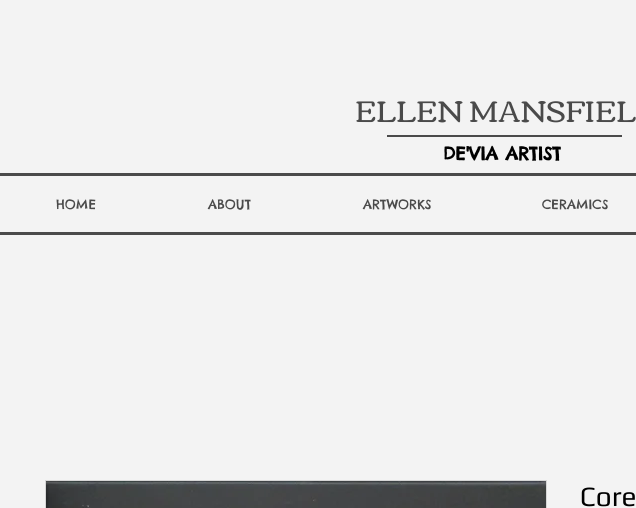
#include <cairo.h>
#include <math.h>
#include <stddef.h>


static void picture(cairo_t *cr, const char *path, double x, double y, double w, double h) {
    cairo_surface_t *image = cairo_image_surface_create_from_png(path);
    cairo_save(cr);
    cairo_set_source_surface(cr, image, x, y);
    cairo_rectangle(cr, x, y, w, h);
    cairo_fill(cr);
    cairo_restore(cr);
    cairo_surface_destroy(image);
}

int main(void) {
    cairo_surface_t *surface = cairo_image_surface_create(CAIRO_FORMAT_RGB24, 636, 508);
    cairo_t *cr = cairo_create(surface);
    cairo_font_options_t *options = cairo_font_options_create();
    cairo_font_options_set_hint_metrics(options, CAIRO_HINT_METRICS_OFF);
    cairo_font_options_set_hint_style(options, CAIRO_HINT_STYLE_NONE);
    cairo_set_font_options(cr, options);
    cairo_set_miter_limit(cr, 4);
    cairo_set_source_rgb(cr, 0.953, 0.953, 0.953);
    cairo_paint(cr);
    cairo_select_font_face(cr, "Corben", CAIRO_FONT_SLANT_NORMAL, CAIRO_FONT_WEIGHT_NORMAL);
    cairo_set_font_size(cr, 30);
    cairo_set_source_rgb(cr, 0.29, 0.29, 0.29);
    cairo_move_to(cr, 355, 122);
    cairo_show_text(cr, "ELLEN MANSFIEL");
    cairo_rectangle(cr, 387, 135, 235, 2);
    cairo_fill(cr);
    cairo_select_font_face(cr, "Chelsea Market", CAIRO_FONT_SLANT_NORMAL, CAIRO_FONT_WEIGHT_BOLD);
    cairo_set_font_size(cr, 18);
    cairo_set_source_rgb(cr, 0, 0, 0);
    cairo_move_to(cr, 443, 160);
    cairo_show_text(cr, "DE'VIA ARTIST");
    cairo_set_source_rgb(cr, 0.29, 0.29, 0.29);
    cairo_rectangle(cr, 0, 173, 636, 3);
    cairo_fill(cr);
    cairo_rectangle(cr, 0, 232, 636, 3);
    cairo_fill(cr);
    cairo_select_font_face(cr, "Chelsea Market", CAIRO_FONT_SLANT_NORMAL, CAIRO_FONT_WEIGHT_NORMAL);
    cairo_set_font_size(cr, 13);
    cairo_move_to(cr, 56, 209);
    cairo_show_text(cr, "HOME");
    cairo_move_to(cr, 208, 209);
    cairo_show_text(cr, "ABOUT");
    cairo_move_to(cr, 363, 209);
    cairo_show_text(cr, "ARTWORKS");
    cairo_move_to(cr, 542, 209);
    cairo_show_text(cr, "CERAMICS");
    cairo_rectangle(cr, 45.5, 480.5, 501, 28);
    cairo_set_source_rgb(cr, 0.839, 0.839, 0.839);
    cairo_set_line_width(cr, 1);
    cairo_stroke(cr);
    picture(cr, "img1.png", 46, 481, 500, 27);
    cairo_select_font_face(cr, "Play", CAIRO_FONT_SLANT_NORMAL, CAIRO_FONT_WEIGHT_NORMAL);
    cairo_set_font_size(cr, 28);
    cairo_set_source_rgb(cr, 0, 0, 0);
    cairo_move_to(cr, 580, 506);
    cairo_show_text(cr, "Core");
    cairo_surface_write_to_png(surface, "page.png");
    cairo_font_options_destroy(options);
    cairo_destroy(cr);
    cairo_surface_destroy(surface);
    return 0;
}
